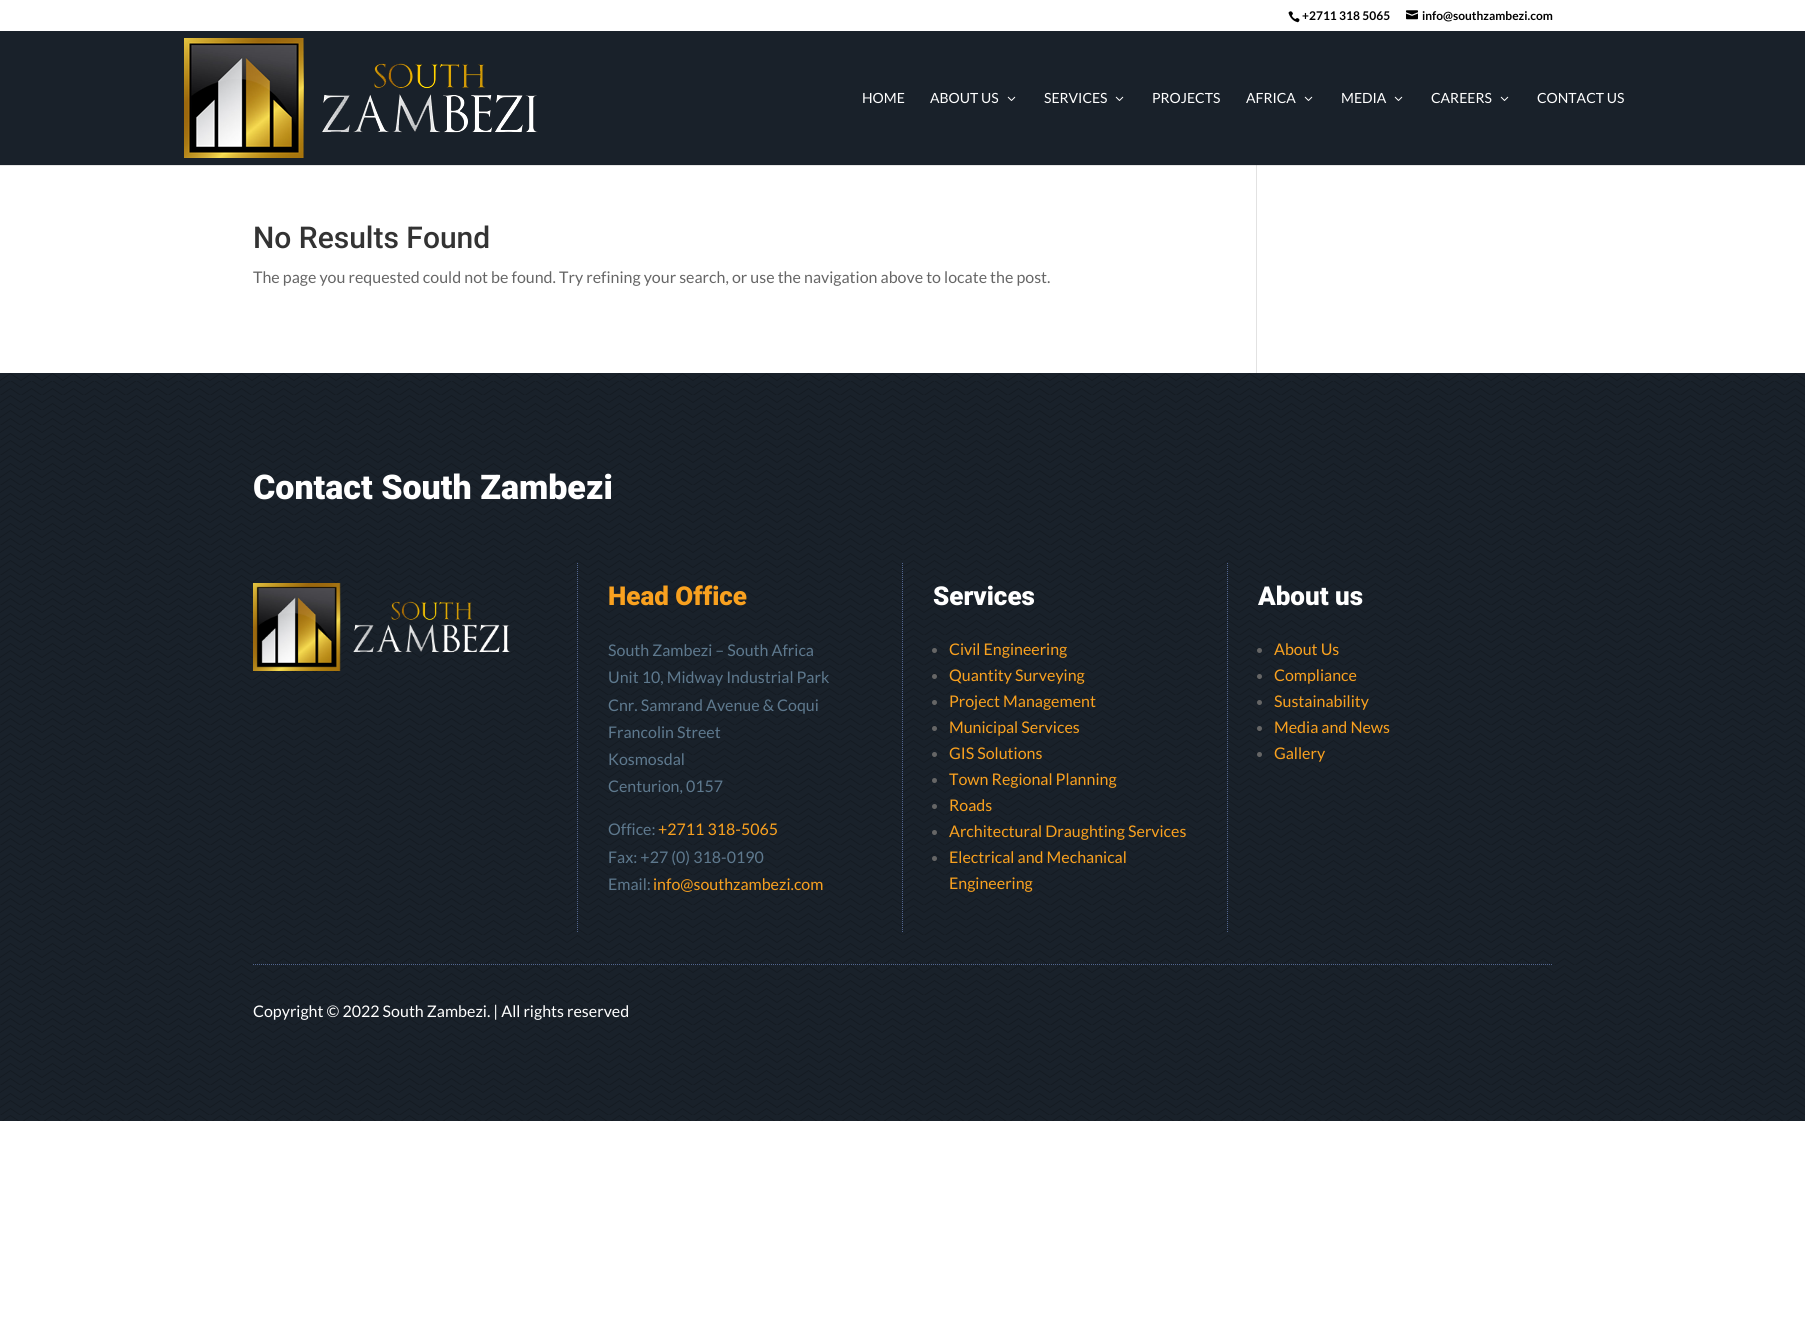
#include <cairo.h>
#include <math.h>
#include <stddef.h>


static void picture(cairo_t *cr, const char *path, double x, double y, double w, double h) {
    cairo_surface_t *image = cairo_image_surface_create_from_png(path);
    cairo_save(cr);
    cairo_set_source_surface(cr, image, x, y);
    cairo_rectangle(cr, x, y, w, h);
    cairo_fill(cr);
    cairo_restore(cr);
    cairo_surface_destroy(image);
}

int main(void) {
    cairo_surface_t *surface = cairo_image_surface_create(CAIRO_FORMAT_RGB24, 1805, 1333);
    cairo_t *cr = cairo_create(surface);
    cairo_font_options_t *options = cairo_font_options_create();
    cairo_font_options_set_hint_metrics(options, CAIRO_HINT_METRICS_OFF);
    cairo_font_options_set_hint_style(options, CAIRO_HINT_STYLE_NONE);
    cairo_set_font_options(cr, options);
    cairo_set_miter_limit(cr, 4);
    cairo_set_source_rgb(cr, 1, 1, 1);
    cairo_paint(cr);
    cairo_set_source_rgb(cr, 0.902, 0.902, 0.902);
    cairo_rectangle(cr, 0, 165, 1805, 1);
    cairo_fill(cr);
    picture(cr, "img1.png", 1288, 11, 12, 12);
    cairo_select_font_face(cr, "Lato", CAIRO_FONT_SLANT_NORMAL, CAIRO_FONT_WEIGHT_BOLD);
    cairo_set_font_size(cr, 12);
    cairo_set_source_rgb(cr, 0, 0, 0);
    cairo_move_to(cr, 1302, 20);
    cairo_show_text(cr, "+2711 318 5065");
    picture(cr, "img2.png", 1406, 10, 12, 10);
    cairo_move_to(cr, 1422, 20);
    cairo_show_text(cr, "info@southzambezi.com");
    cairo_set_source_rgb(cr, 0.098, 0.129, 0.165);
    cairo_rectangle(cr, 0, 31, 1805, 134);
    cairo_fill(cr);
    picture(cr, "img3.png", 184, 38, 354, 120);
    cairo_select_font_face(cr, "Lato", CAIRO_FONT_SLANT_NORMAL, CAIRO_FONT_WEIGHT_NORMAL);
    cairo_set_font_size(cr, 14);
    cairo_set_source_rgb(cr, 1, 1, 1);
    cairo_move_to(cr, 862, 103);
    cairo_show_text(cr, "HOME");
    cairo_move_to(cr, 930, 103);
    cairo_show_text(cr, "ABOUT US");
    picture(cr, "img4.png", 1007, 96, 9, 5);
    cairo_move_to(cr, 1044, 103);
    cairo_show_text(cr, "SERVICES");
    picture(cr, "img4.png", 1115, 96, 9, 5);
    cairo_move_to(cr, 1152, 103);
    cairo_show_text(cr, "PROJECTS");
    cairo_move_to(cr, 1246, 103);
    cairo_show_text(cr, "AFRICA");
    picture(cr, "img4.png", 1304, 96, 9, 5);
    cairo_move_to(cr, 1341, 103);
    cairo_show_text(cr, "MEDIA");
    picture(cr, "img4.png", 1394, 96, 9, 5);
    cairo_move_to(cr, 1431, 103);
    cairo_show_text(cr, "CAREERS");
    picture(cr, "img4.png", 1500, 96, 9, 5);
    cairo_move_to(cr, 1537, 103);
    cairo_show_text(cr, "CONTACT US");
    cairo_select_font_face(cr, "Roboto Medium", CAIRO_FONT_SLANT_NORMAL, CAIRO_FONT_WEIGHT_NORMAL);
    cairo_set_font_size(cr, 30);
    cairo_set_source_rgb(cr, 0.2, 0.2, 0.2);
    cairo_move_to(cr, 253, 248);
    cairo_show_text(cr, "No Results Found");
    cairo_select_font_face(cr, "Lato", CAIRO_FONT_SLANT_NORMAL, CAIRO_FONT_WEIGHT_NORMAL);
    cairo_set_font_size(cr, 16);
    cairo_set_source_rgb(cr, 0.4, 0.4, 0.4);
    cairo_move_to(cr, 253, 283);
    cairo_show_text(cr, "The page you requested could not be found. Try refining your search, or use the navigation above to locate the post.");
    cairo_set_source_rgb(cr, 0.886, 0.886, 0.886);
    cairo_rectangle(cr, 1256, 165, 1, 208);
    cairo_fill(cr);
    cairo_set_source_rgb(cr, 0.796, 0.796, 0.796);
    cairo_rectangle(cr, 1256, 165, 1, 1);
    cairo_fill(cr);
    cairo_set_source_rgb(cr, 0.098, 0.129, 0.165);
    cairo_rectangle(cr, 0, 373, 1805, 748);
    cairo_fill(cr);
    picture(cr, "img5.png", 0, 373, 1805, 748);
    cairo_select_font_face(cr, "Roboto Black", CAIRO_FONT_SLANT_NORMAL, CAIRO_FONT_WEIGHT_NORMAL);
    cairo_set_font_size(cr, 34);
    cairo_set_source_rgb(cr, 1, 1, 1);
    cairo_move_to(cr, 253, 499);
    cairo_show_text(cr, "Contact South Zambezi");
    cairo_new_path(cr);
    cairo_move_to(cr, 253, 964.5);
    cairo_line_to(cr, 1553, 964.5);
    cairo_set_source_rgb(cr, 0.322, 0.396, 0.557);
    cairo_set_line_width(cr, 1);
    cairo_set_dash(cr, (double[]){1, 1}, 2, 0);
    cairo_stroke(cr);
    cairo_new_path(cr);
    cairo_move_to(cr, 577.5, 563);
    cairo_line_to(cr, 577.5, 932);
    cairo_stroke(cr);
    picture(cr, "img6.png", 253, 583, 258, 88);
    cairo_new_path(cr);
    cairo_move_to(cr, 902.5, 563);
    cairo_line_to(cr, 902.5, 932);
    cairo_stroke(cr);
    cairo_set_font_size(cr, 26);
    cairo_set_source_rgb(cr, 0.976, 0.631, 0.122);
    cairo_move_to(cr, 608, 605);
    cairo_show_text(cr, "Head Office");
    cairo_select_font_face(cr, "Lato", CAIRO_FONT_SLANT_NORMAL, CAIRO_FONT_WEIGHT_NORMAL);
    cairo_set_font_size(cr, 16);
    cairo_set_source_rgb(cr, 0.369, 0.475, 0.557);
    cairo_move_to(cr, 608, 656);
    cairo_show_text(cr, "South Zambezi – South Africa");
    cairo_move_to(cr, 608, 683);
    cairo_show_text(cr, "Unit 10, Midway Industrial Park");
    cairo_move_to(cr, 608, 711);
    cairo_show_text(cr, "Cnr. Samrand Avenue & Coqui");
    cairo_move_to(cr, 608, 738);
    cairo_show_text(cr, "Francolin Street");
    cairo_move_to(cr, 608, 765);
    cairo_show_text(cr, "Kosmosdal");
    cairo_move_to(cr, 608, 792);
    cairo_show_text(cr, "Centurion, 0157");
    cairo_move_to(cr, 608, 835);
    cairo_show_text(cr, "Office:");
    cairo_set_source_rgb(cr, 0.976, 0.631, 0.122);
    cairo_move_to(cr, 658, 835);
    cairo_show_text(cr, "+2711 318-5065");
    cairo_set_source_rgb(cr, 0.369, 0.475, 0.557);
    cairo_move_to(cr, 608, 863);
    cairo_show_text(cr, "Fax: +27 (0) 318-0190");
    cairo_move_to(cr, 608, 890);
    cairo_show_text(cr, "Email:");
    cairo_set_source_rgb(cr, 0.976, 0.631, 0.122);
    cairo_move_to(cr, 653, 890);
    cairo_show_text(cr, "info@southzambezi.com");
    cairo_new_path(cr);
    cairo_move_to(cr, 1227.5, 563);
    cairo_line_to(cr, 1227.5, 932);
    cairo_set_source_rgb(cr, 0.322, 0.396, 0.557);
    cairo_stroke(cr);
    cairo_select_font_face(cr, "Roboto Black", CAIRO_FONT_SLANT_NORMAL, CAIRO_FONT_WEIGHT_NORMAL);
    cairo_set_font_size(cr, 26);
    cairo_set_source_rgb(cr, 1, 1, 1);
    cairo_move_to(cr, 933, 605);
    cairo_show_text(cr, "Services");
    cairo_set_source_rgb(cr, 0.4, 0.4, 0.4);
    cairo_new_path(cr);
    cairo_arc(cr, 934.5, 650.5, 2.5, 0, 2 * M_PI);
    cairo_fill(cr);
    cairo_select_font_face(cr, "Lato", CAIRO_FONT_SLANT_NORMAL, CAIRO_FONT_WEIGHT_NORMAL);
    cairo_set_font_size(cr, 16);
    cairo_set_source_rgb(cr, 0.976, 0.631, 0.122);
    cairo_move_to(cr, 949, 655);
    cairo_show_text(cr, "Civil Engineering");
    cairo_set_source_rgb(cr, 0.4, 0.4, 0.4);
    cairo_new_path(cr);
    cairo_arc(cr, 934.5, 676.5, 2.5, 0, 2 * M_PI);
    cairo_fill(cr);
    cairo_set_source_rgb(cr, 0.976, 0.631, 0.122);
    cairo_move_to(cr, 949, 681);
    cairo_show_text(cr, "Quantity Surveying");
    cairo_set_source_rgb(cr, 0.4, 0.4, 0.4);
    cairo_new_path(cr);
    cairo_arc(cr, 934.5, 702.5, 2.5, 0, 2 * M_PI);
    cairo_fill(cr);
    cairo_set_source_rgb(cr, 0.976, 0.631, 0.122);
    cairo_move_to(cr, 949, 707);
    cairo_show_text(cr, "Project Management");
    cairo_set_source_rgb(cr, 0.4, 0.4, 0.4);
    cairo_new_path(cr);
    cairo_arc(cr, 934.5, 728.5, 2.5, 0, 2 * M_PI);
    cairo_fill(cr);
    cairo_set_source_rgb(cr, 0.976, 0.631, 0.122);
    cairo_move_to(cr, 949, 733);
    cairo_show_text(cr, "Municipal Services");
    cairo_set_source_rgb(cr, 0.4, 0.4, 0.4);
    cairo_new_path(cr);
    cairo_arc(cr, 934.5, 754.5, 2.5, 0, 2 * M_PI);
    cairo_fill(cr);
    cairo_set_source_rgb(cr, 0.976, 0.631, 0.122);
    cairo_move_to(cr, 949, 759);
    cairo_show_text(cr, "GIS Solutions");
    cairo_set_source_rgb(cr, 0.4, 0.4, 0.4);
    cairo_new_path(cr);
    cairo_arc(cr, 934.5, 780.5, 2.5, 0, 2 * M_PI);
    cairo_fill(cr);
    cairo_set_source_rgb(cr, 0.976, 0.631, 0.122);
    cairo_move_to(cr, 949, 785);
    cairo_show_text(cr, "Town Regional Planning");
    cairo_set_source_rgb(cr, 0.4, 0.4, 0.4);
    cairo_new_path(cr);
    cairo_arc(cr, 934.5, 806.5, 2.5, 0, 2 * M_PI);
    cairo_fill(cr);
    cairo_set_source_rgb(cr, 0.976, 0.631, 0.122);
    cairo_move_to(cr, 949, 811);
    cairo_show_text(cr, "Roads");
    cairo_set_source_rgb(cr, 0.4, 0.4, 0.4);
    cairo_new_path(cr);
    cairo_arc(cr, 934.5, 832.5, 2.5, 0, 2 * M_PI);
    cairo_fill(cr);
    cairo_set_source_rgb(cr, 0.976, 0.631, 0.122);
    cairo_move_to(cr, 949, 837);
    cairo_show_text(cr, "Architectural Draughting Services");
    cairo_set_source_rgb(cr, 0.4, 0.4, 0.4);
    cairo_new_path(cr);
    cairo_arc(cr, 934.5, 858.5, 2.5, 0, 2 * M_PI);
    cairo_fill(cr);
    cairo_set_source_rgb(cr, 0.976, 0.631, 0.122);
    cairo_move_to(cr, 949, 863);
    cairo_show_text(cr, "Electrical and Mechanical");
    cairo_move_to(cr, 949, 889);
    cairo_show_text(cr, "Engineering");
    cairo_select_font_face(cr, "Roboto Black", CAIRO_FONT_SLANT_NORMAL, CAIRO_FONT_WEIGHT_NORMAL);
    cairo_set_font_size(cr, 26);
    cairo_set_source_rgb(cr, 1, 1, 1);
    cairo_move_to(cr, 1258, 605);
    cairo_show_text(cr, "About us");
    cairo_set_source_rgb(cr, 0.4, 0.4, 0.4);
    cairo_new_path(cr);
    cairo_arc(cr, 1259.5, 650.5, 2.5, 0, 2 * M_PI);
    cairo_fill(cr);
    cairo_select_font_face(cr, "Lato", CAIRO_FONT_SLANT_NORMAL, CAIRO_FONT_WEIGHT_NORMAL);
    cairo_set_font_size(cr, 16);
    cairo_set_source_rgb(cr, 0.976, 0.631, 0.122);
    cairo_move_to(cr, 1274, 655);
    cairo_show_text(cr, "About Us");
    cairo_set_source_rgb(cr, 0.4, 0.4, 0.4);
    cairo_new_path(cr);
    cairo_arc(cr, 1259.5, 676.5, 2.5, 0, 2 * M_PI);
    cairo_fill(cr);
    cairo_set_source_rgb(cr, 0.976, 0.631, 0.122);
    cairo_move_to(cr, 1274, 681);
    cairo_show_text(cr, "Compliance");
    cairo_set_source_rgb(cr, 0.4, 0.4, 0.4);
    cairo_new_path(cr);
    cairo_arc(cr, 1259.5, 702.5, 2.5, 0, 2 * M_PI);
    cairo_fill(cr);
    cairo_set_source_rgb(cr, 0.976, 0.631, 0.122);
    cairo_move_to(cr, 1274, 707);
    cairo_show_text(cr, "Sustainability");
    cairo_set_source_rgb(cr, 0.4, 0.4, 0.4);
    cairo_new_path(cr);
    cairo_arc(cr, 1259.5, 728.5, 2.5, 0, 2 * M_PI);
    cairo_fill(cr);
    cairo_set_source_rgb(cr, 0.976, 0.631, 0.122);
    cairo_move_to(cr, 1274, 733);
    cairo_show_text(cr, "Media and News");
    cairo_set_source_rgb(cr, 0.4, 0.4, 0.4);
    cairo_new_path(cr);
    cairo_arc(cr, 1259.5, 754.5, 2.5, 0, 2 * M_PI);
    cairo_fill(cr);
    cairo_set_source_rgb(cr, 0.976, 0.631, 0.122);
    cairo_move_to(cr, 1274, 759);
    cairo_show_text(cr, "Gallery");
    cairo_set_source_rgb(cr, 1, 1, 1);
    cairo_move_to(cr, 253, 1017);
    cairo_show_text(cr, "Copyright © 2022 South Zambezi. | All rights reserved");
    cairo_surface_write_to_png(surface, "page.png");
    cairo_font_options_destroy(options);
    cairo_destroy(cr);
    cairo_surface_destroy(surface);
    return 0;
}
